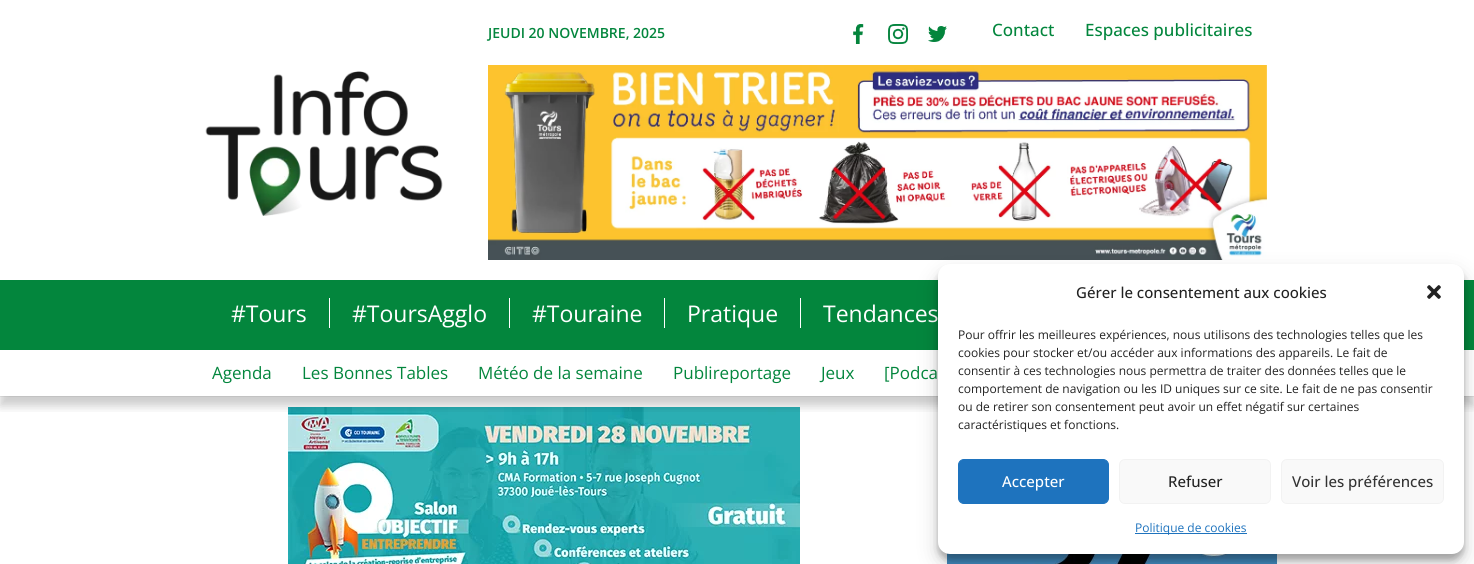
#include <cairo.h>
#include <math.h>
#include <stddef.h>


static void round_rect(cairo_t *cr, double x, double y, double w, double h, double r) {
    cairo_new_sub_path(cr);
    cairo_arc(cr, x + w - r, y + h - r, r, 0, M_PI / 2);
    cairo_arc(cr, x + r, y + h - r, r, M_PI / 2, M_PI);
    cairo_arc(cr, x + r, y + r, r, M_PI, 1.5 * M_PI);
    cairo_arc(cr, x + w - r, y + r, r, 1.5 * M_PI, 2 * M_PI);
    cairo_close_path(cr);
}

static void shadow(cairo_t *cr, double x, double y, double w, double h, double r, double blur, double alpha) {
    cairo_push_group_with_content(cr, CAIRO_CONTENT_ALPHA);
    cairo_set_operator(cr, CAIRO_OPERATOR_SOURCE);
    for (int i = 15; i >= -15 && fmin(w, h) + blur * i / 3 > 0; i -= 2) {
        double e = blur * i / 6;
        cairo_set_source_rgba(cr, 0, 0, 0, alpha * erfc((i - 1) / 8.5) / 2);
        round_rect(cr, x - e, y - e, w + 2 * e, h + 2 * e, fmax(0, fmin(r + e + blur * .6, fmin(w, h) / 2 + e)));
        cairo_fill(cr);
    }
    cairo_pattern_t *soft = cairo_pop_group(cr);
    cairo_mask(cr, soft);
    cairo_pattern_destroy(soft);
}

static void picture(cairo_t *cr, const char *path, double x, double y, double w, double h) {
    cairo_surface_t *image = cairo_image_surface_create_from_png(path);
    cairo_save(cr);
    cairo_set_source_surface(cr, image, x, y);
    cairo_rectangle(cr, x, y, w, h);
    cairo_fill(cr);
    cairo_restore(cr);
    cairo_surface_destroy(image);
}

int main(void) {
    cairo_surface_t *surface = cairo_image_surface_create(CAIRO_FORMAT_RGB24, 1474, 564);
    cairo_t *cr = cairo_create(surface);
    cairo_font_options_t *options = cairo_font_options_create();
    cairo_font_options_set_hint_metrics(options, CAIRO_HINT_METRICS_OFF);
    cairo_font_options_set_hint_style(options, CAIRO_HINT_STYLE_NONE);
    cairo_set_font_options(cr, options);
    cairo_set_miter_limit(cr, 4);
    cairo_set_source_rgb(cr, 1, 1, 1);
    cairo_paint(cr);
    cairo_set_source_rgb(cr, 0.945, 0.945, 0.945);
    cairo_rectangle(cr, 0, 396, 1474, 1);
    cairo_fill(cr);
    cairo_select_font_face(cr, "Open Sans SemiBold", CAIRO_FONT_SLANT_NORMAL, CAIRO_FONT_WEIGHT_NORMAL);
    cairo_set_font_size(cr, 14);
    cairo_set_source_rgb(cr, 0.012, 0.525, 0.239);
    cairo_move_to(cr, 488, 38);
    cairo_show_text(cr, "JEUDI 20 NOVEMBRE, 2025");
    picture(cr, "img1.png", 853, 24, 11, 20);
    picture(cr, "img2.png", 888, 24, 20, 20);
    picture(cr, "img3.png", 928, 26, 19, 16);
    cairo_select_font_face(cr, "Open Sans Medium", CAIRO_FONT_SLANT_NORMAL, CAIRO_FONT_WEIGHT_NORMAL);
    cairo_set_font_size(cr, 17);
    cairo_move_to(cr, 992, 36);
    cairo_show_text(cr, "Contact");
    cairo_move_to(cr, 1085, 36);
    cairo_show_text(cr, "Espaces publicitaires");
    picture(cr, "img4.png", 488, 65, 779, 195);
    picture(cr, "img5.png", 205, 71, 238, 145);
    cairo_rectangle(cr, 0, 280, 1474, 70);
    cairo_fill(cr);
    cairo_select_font_face(cr, "Open Sans", CAIRO_FONT_SLANT_NORMAL, CAIRO_FONT_WEIGHT_NORMAL);
    cairo_set_font_size(cr, 23);
    cairo_set_source_rgb(cr, 1, 1, 1);
    cairo_move_to(cr, 231, 322);
    cairo_show_text(cr, "#Tours");
    cairo_rectangle(cr, 329, 298, 1, 30);
    cairo_fill(cr);
    cairo_move_to(cr, 352, 322);
    cairo_show_text(cr, "#ToursAgglo");
    cairo_rectangle(cr, 509, 298, 1, 30);
    cairo_fill(cr);
    cairo_move_to(cr, 532, 322);
    cairo_show_text(cr, "#Touraine");
    cairo_rectangle(cr, 664, 298, 1, 30);
    cairo_fill(cr);
    cairo_move_to(cr, 687, 322);
    cairo_show_text(cr, "Pratique");
    cairo_rectangle(cr, 800, 298, 1, 30);
    cairo_fill(cr);
    cairo_move_to(cr, 823, 322);
    cairo_show_text(cr, "Tendances");
    picture(cr, "img6.png", 288, 407, 512, 157);
    cairo_save(cr);
    cairo_rectangle(cr, 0, 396, 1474, 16);
    cairo_clip(cr);
    cairo_set_source_rgb(cr, 0, 0, 0);
    shadow(cr, 0, 360, 1474, 46, 0, 5, 0.2);
    cairo_restore(cr);
    cairo_set_font_size(cr, 17);
    cairo_set_source_rgb(cr, 0.012, 0.525, 0.239);
    cairo_move_to(cr, 212, 379);
    cairo_show_text(cr, "Agenda");
    cairo_move_to(cr, 302, 379);
    cairo_show_text(cr, "Les Bonnes Tables");
    cairo_move_to(cr, 478, 379);
    cairo_show_text(cr, "Météo de la semaine");
    cairo_move_to(cr, 673, 379);
    cairo_show_text(cr, "Publireportage");
    cairo_move_to(cr, 821, 379);
    cairo_show_text(cr, "Jeux");
    cairo_move_to(cr, 884, 379);
    cairo_show_text(cr, "[Podca");
    picture(cr, "img7.png", 947, 553, 330, 11);
    cairo_set_source_rgb(cr, 0, 0, 0);
    shadow(cr, 938, 270, 526, 290, 12, 3, 0.23);
    shadow(cr, 938, 274, 526, 290, 12, 10, 0.19);
    cairo_set_source_rgb(cr, 1, 1, 1);
    round_rect(cr, 938, 264, 526, 290, 12);
    cairo_fill(cr);
    cairo_select_font_face(cr, "Open Sans Medium", CAIRO_FONT_SLANT_NORMAL, CAIRO_FONT_WEIGHT_NORMAL);
    cairo_set_font_size(cr, 15);
    cairo_set_source_rgb(cr, 0.133, 0.133, 0.133);
    cairo_move_to(cr, 1076, 298);
    cairo_show_text(cr, "Gérer le consentement aux cookies");
    picture(cr, "img8.png", 1427, 285, 14, 14);
    cairo_select_font_face(cr, "Open Sans", CAIRO_FONT_SLANT_NORMAL, CAIRO_FONT_WEIGHT_NORMAL);
    cairo_set_font_size(cr, 12);
    cairo_move_to(cr, 958, 339);
    cairo_show_text(cr, "Pour offrir les meilleures expériences, nous utilisons des technologies telles que les");
    cairo_move_to(cr, 958, 357);
    cairo_show_text(cr, "cookies pour stocker et/ou accéder aux informations des appareils. Le fait de");
    cairo_move_to(cr, 958, 375);
    cairo_show_text(cr, "consentir à ces technologies nous permettra de traiter des données telles que le");
    cairo_move_to(cr, 958, 393);
    cairo_show_text(cr, "comportement de navigation ou les ID uniques sur ce site. Le fait de ne pas consentir");
    cairo_move_to(cr, 958, 411);
    cairo_show_text(cr, "ou de retirer son consentement peut avoir un effet négatif sur certaines");
    cairo_move_to(cr, 958, 429);
    cairo_show_text(cr, "caractéristiques et fonctions.");
    cairo_set_source_rgb(cr, 0.118, 0.451, 0.745);
    round_rect(cr, 958.5, 459.5, 150, 44, 5.5);
    cairo_fill_preserve(cr);
    cairo_set_line_width(cr, 1);
    cairo_stroke(cr);
    cairo_select_font_face(cr, "Open Sans Medium", CAIRO_FONT_SLANT_NORMAL, CAIRO_FONT_WEIGHT_NORMAL);
    cairo_set_font_size(cr, 15);
    cairo_set_source_rgb(cr, 1, 1, 1);
    cairo_move_to(cr, 1002, 487);
    cairo_show_text(cr, "Accepter");
    cairo_set_source_rgb(cr, 0.976, 0.976, 0.976);
    round_rect(cr, 1119.5, 459.5, 151, 44, 5.5);
    cairo_fill_preserve(cr);
    cairo_set_source_rgb(cr, 0.949, 0.949, 0.949);
    cairo_stroke(cr);
    cairo_set_source_rgb(cr, 0.133, 0.133, 0.133);
    cairo_move_to(cr, 1168, 487);
    cairo_show_text(cr, "Refuser");
    cairo_set_source_rgb(cr, 0.976, 0.976, 0.976);
    round_rect(cr, 1281.5, 459.5, 162, 44, 5.5);
    cairo_fill_preserve(cr);
    cairo_set_source_rgb(cr, 0.949, 0.949, 0.949);
    cairo_stroke(cr);
    cairo_set_source_rgb(cr, 0.2, 0.2, 0.2);
    cairo_move_to(cr, 1292, 487);
    cairo_show_text(cr, "Voir les préférences");
    cairo_set_source_rgb(cr, 0.118, 0.451, 0.745);
    cairo_rectangle(cr, 1135, 533, 112, 1);
    cairo_fill(cr);
    cairo_select_font_face(cr, "Open Sans", CAIRO_FONT_SLANT_NORMAL, CAIRO_FONT_WEIGHT_NORMAL);
    cairo_set_font_size(cr, 12);
    cairo_move_to(cr, 1135, 532);
    cairo_show_text(cr, "Politique de cookies");
    cairo_surface_write_to_png(surface, "page.png");
    cairo_font_options_destroy(options);
    cairo_destroy(cr);
    cairo_surface_destroy(surface);
    return 0;
}
